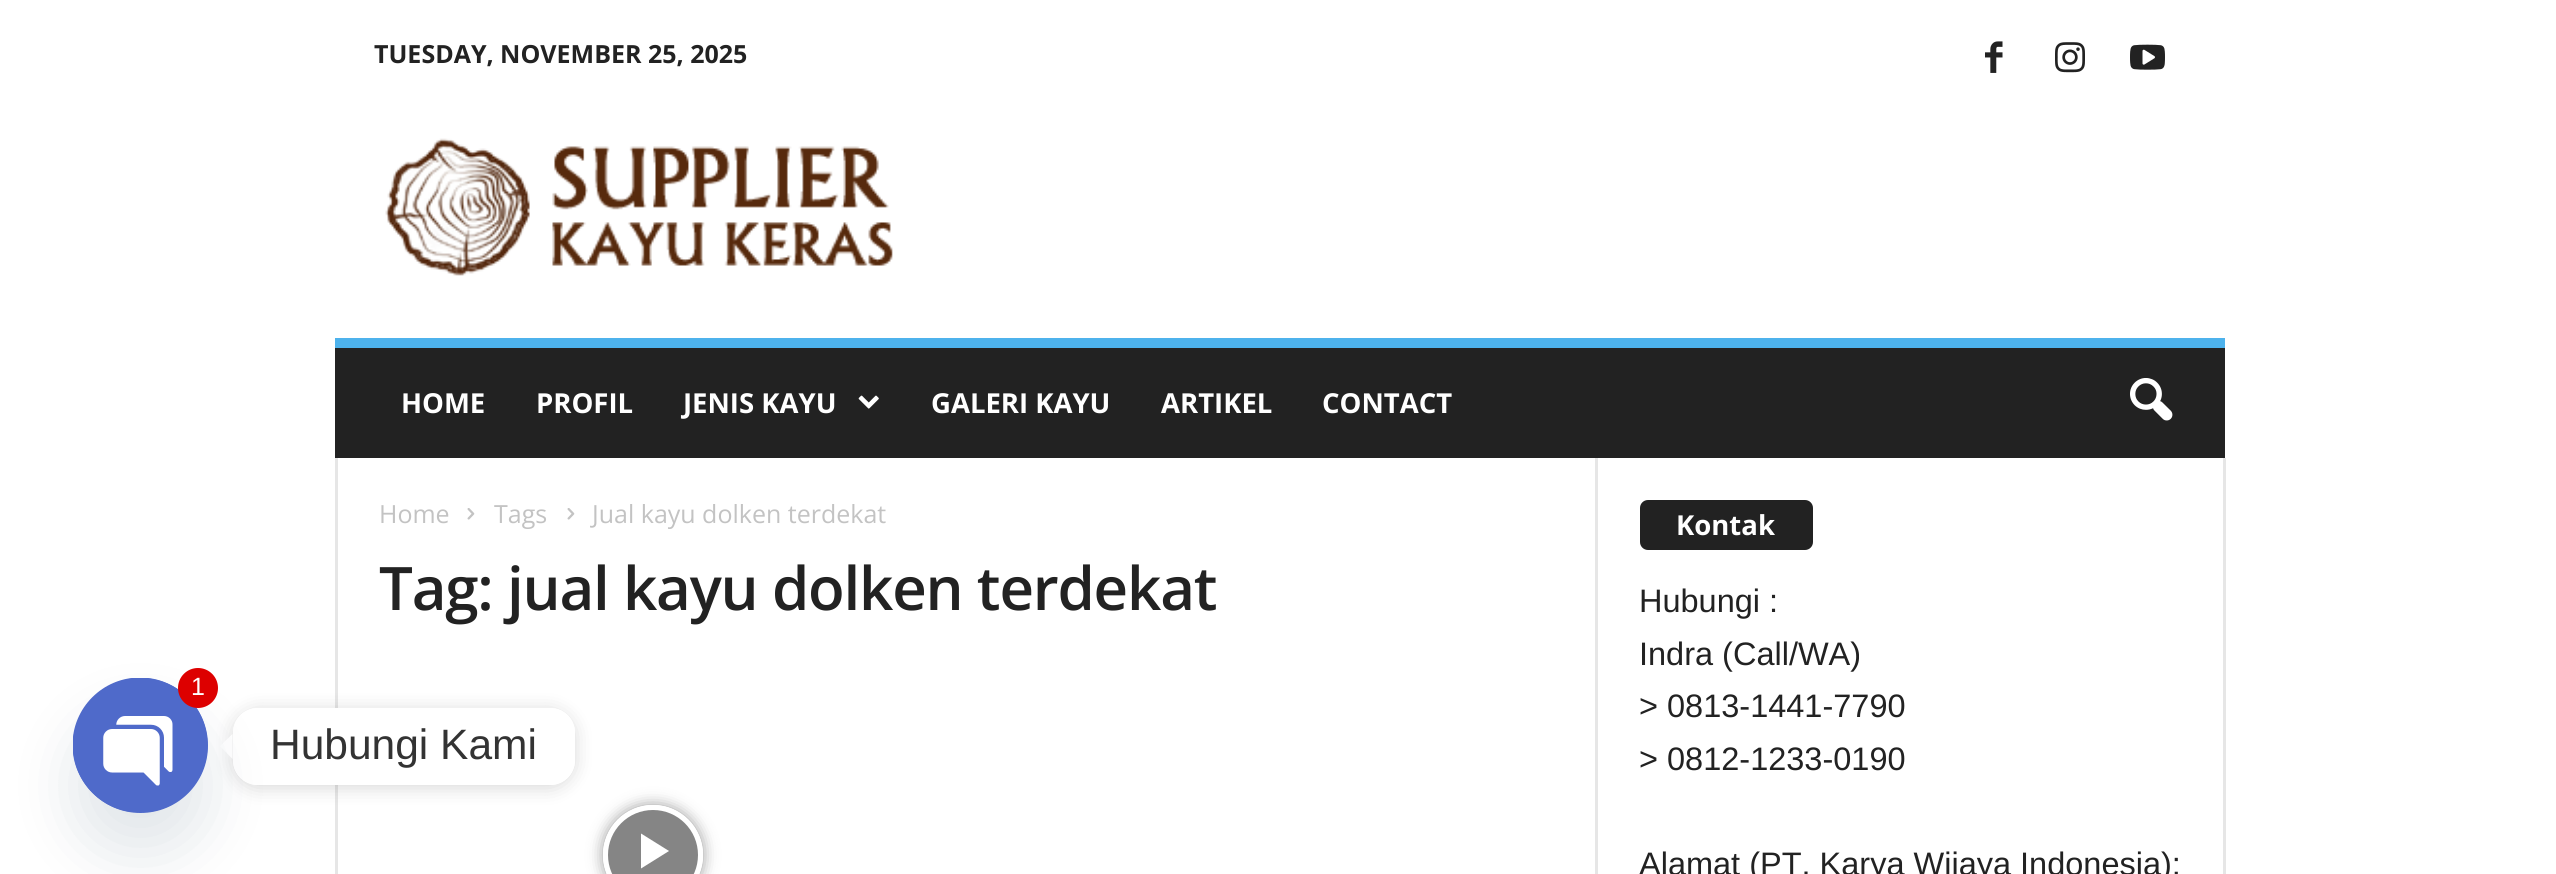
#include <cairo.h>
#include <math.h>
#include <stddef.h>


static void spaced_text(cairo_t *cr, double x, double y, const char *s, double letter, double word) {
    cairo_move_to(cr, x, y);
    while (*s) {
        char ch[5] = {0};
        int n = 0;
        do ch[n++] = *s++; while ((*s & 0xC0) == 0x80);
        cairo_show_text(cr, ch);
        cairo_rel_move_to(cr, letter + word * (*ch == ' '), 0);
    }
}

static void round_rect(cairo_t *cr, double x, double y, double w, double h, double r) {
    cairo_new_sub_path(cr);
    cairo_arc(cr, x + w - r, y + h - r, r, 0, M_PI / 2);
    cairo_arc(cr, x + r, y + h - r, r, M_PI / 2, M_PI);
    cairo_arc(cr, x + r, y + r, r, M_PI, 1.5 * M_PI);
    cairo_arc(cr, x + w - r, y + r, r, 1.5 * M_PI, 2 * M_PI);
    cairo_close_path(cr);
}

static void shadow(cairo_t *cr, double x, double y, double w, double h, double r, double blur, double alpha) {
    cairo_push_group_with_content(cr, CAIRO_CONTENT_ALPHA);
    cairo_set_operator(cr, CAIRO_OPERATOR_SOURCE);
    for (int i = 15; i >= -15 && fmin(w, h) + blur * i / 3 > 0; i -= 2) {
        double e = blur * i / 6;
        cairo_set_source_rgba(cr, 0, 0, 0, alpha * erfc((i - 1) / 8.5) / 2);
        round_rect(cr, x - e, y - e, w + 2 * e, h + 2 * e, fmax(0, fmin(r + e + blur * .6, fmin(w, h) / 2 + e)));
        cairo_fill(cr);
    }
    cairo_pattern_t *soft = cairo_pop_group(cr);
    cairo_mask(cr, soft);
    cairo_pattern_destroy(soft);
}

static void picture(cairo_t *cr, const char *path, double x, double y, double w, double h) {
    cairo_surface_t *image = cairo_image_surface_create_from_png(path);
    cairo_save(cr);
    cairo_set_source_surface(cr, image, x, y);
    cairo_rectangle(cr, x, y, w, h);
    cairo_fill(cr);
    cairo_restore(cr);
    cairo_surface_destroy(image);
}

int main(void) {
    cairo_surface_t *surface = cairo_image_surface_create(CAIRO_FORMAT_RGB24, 2556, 874);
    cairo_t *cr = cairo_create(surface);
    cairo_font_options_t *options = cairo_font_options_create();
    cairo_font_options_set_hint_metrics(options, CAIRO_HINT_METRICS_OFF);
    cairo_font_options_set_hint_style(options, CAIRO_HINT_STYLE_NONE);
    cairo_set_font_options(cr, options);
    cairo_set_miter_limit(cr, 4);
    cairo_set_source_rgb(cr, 1, 1, 1);
    cairo_paint(cr);
    cairo_set_source_rgb(cr, 0.902, 0.902, 0.902);
    cairo_rectangle(cr, 335, 458, 3, 416);
    cairo_fill(cr);
    cairo_save(cr);
    cairo_set_fill_rule(cr, CAIRO_FILL_RULE_EVEN_ODD);
    cairo_new_path(cr);
    cairo_move_to(cr, 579, 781);
    cairo_line_to(cr, 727, 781);
    cairo_line_to(cr, 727, 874);
    cairo_line_to(cr, 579, 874);
    cairo_close_path(cr);
    cairo_move_to(cr, 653, 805);
    cairo_curve_to(cr, 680.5, 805, 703, 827.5, 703, 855);
    cairo_curve_to(cr, 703, 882.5, 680.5, 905, 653, 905);
    cairo_curve_to(cr, 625.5, 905, 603, 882.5, 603, 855);
    cairo_curve_to(cr, 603, 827.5, 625.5, 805, 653, 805);
    cairo_close_path(cr);
    cairo_clip(cr);
    cairo_set_source_rgb(cr, 0, 0, 0);
    shadow(cr, 603, 805, 100, 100, 50, 7.5, 0.4);
    cairo_restore(cr);
    cairo_set_source_rgba(cr, 0, 0, 0, 0.48);
    cairo_arc(cr, 653, 855, 47.5, 0, 2 * M_PI);
    cairo_fill_preserve(cr);
    cairo_set_source_rgb(cr, 1, 1, 1);
    cairo_set_line_width(cr, 5);
    cairo_stroke(cr);
    cairo_save(cr);
    cairo_set_fill_rule(cr, CAIRO_FILL_RULE_EVEN_ODD);
    cairo_new_path(cr);
    cairo_move_to(cr, 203, 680);
    cairo_line_to(cr, 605, 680);
    cairo_line_to(cr, 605, 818);
    cairo_line_to(cr, 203, 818);
    cairo_close_path(cr);
    cairo_move_to(cr, 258, 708);
    cairo_line_to(cr, 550, 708);
    cairo_curve_to(cr, 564, 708, 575, 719, 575, 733);
    cairo_line_to(cr, 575, 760);
    cairo_curve_to(cr, 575, 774, 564, 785, 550, 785);
    cairo_line_to(cr, 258, 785);
    cairo_curve_to(cr, 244, 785, 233, 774, 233, 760);
    cairo_line_to(cr, 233, 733);
    cairo_curve_to(cr, 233, 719, 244, 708, 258, 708);
    cairo_close_path(cr);
    cairo_clip(cr);
    cairo_set_source_rgb(cr, 0, 0, 0);
    shadow(cr, 233, 710, 342, 78, 25, 9.5, 0.15);
    cairo_restore(cr);
    round_rect(cr, 233, 708, 342, 77, 25);
    cairo_fill(cr);
    cairo_new_path(cr);
    cairo_move_to(cr, 232.5, 734);
    cairo_line_to(cr, 232.5, 759);
    cairo_line_to(cr, 220, 746);
    cairo_close_path(cr);
    cairo_fill(cr);
    cairo_set_source_rgb(cr, 0.286, 0.408, 0.494);
    shadow(cr, 73, 718, 135, 135, 67.5, 30, 0.16);
    cairo_set_source_rgb(cr, 0.31, 0.416, 0.792);
    cairo_arc(cr, 140.5, 745.5, 67.5, 0, 2 * M_PI);
    cairo_fill(cr);
    picture(cr, "img1.png", 73, 678, 135, 134);
    cairo_set_source_rgb(cr, 0.867, 0, 0);
    cairo_arc(cr, 198, 688, 20, 0, 2 * M_PI);
    cairo_fill(cr);
    cairo_select_font_face(cr, "Liberation Sans", CAIRO_FONT_SLANT_NORMAL, CAIRO_FONT_WEIGHT_NORMAL);
    cairo_set_font_size(cr, 25);
    cairo_set_source_rgb(cr, 1, 1, 1);
    cairo_move_to(cr, 191, 695);
    cairo_show_text(cr, "1");
    cairo_set_font_size(cr, 42.5);
    cairo_set_source_rgb(cr, 0.2, 0.2, 0.2);
    cairo_move_to(cr, 270, 759);
    cairo_show_text(cr, "Hubungi Kami");
    cairo_select_font_face(cr, "Open Sans", CAIRO_FONT_SLANT_NORMAL, CAIRO_FONT_WEIGHT_BOLD);
    cairo_set_font_size(cr, 25);
    cairo_set_source_rgb(cr, 0.133, 0.133, 0.133);
    cairo_move_to(cr, 374, 63);
    cairo_show_text(cr, "TUESDAY, NOVEMBER 25, 2025");
    picture(cr, "img2.png", 1985, 41, 18, 32);
    picture(cr, "img3.png", 2055, 42, 30, 31);
    picture(cr, "img4.png", 2130, 44, 35, 26);
    picture(cr, "img5.png", 385, 138, 508, 138);
    cairo_rectangle(cr, 335, 348, 1890, 110);
    cairo_fill(cr);
    cairo_set_source_rgb(cr, 0.302, 0.698, 0.925);
    cairo_rectangle(cr, 335, 338, 1890, 10);
    cairo_fill(cr);
    cairo_set_font_size(cr, 27.5);
    cairo_set_source_rgb(cr, 1, 1, 1);
    cairo_move_to(cr, 401, 413);
    cairo_show_text(cr, "HOME");
    cairo_move_to(cr, 536, 413);
    cairo_show_text(cr, "PROFIL");
    cairo_move_to(cr, 683, 413);
    cairo_show_text(cr, "JENIS KAYU");
    picture(cr, "img6.png", 858, 395, 21, 14);
    cairo_move_to(cr, 931, 413);
    cairo_show_text(cr, "GALERI KAYU");
    cairo_move_to(cr, 1161, 413);
    cairo_show_text(cr, "ARTIKEL");
    cairo_move_to(cr, 1322, 413);
    cairo_show_text(cr, "CONTACT");
    picture(cr, "img7.png", 2130, 378, 43, 43);
    cairo_select_font_face(cr, "Open Sans", CAIRO_FONT_SLANT_NORMAL, CAIRO_FONT_WEIGHT_NORMAL);
    cairo_set_font_size(cr, 25);
    cairo_set_source_rgb(cr, 0.765, 0.765, 0.765);
    cairo_move_to(cr, 379, 523);
    cairo_show_text(cr, "Home");
    picture(cr, "img8.png", 467, 508, 8, 12);
    cairo_move_to(cr, 494, 523);
    cairo_show_text(cr, "Tags");
    picture(cr, "img8.png", 567, 508, 8, 12);
    cairo_move_to(cr, 592, 523);
    cairo_show_text(cr, "Jual kayu dolken terdekat");
    cairo_select_font_face(cr, "Open Sans SemiBold", CAIRO_FONT_SLANT_NORMAL, CAIRO_FONT_WEIGHT_NORMAL);
    cairo_set_font_size(cr, 60);
    cairo_set_source_rgb(cr, 0.133, 0.133, 0.133);
    spaced_text(cr, 379, 610, "Tag: jual kayu dolken terdekat", -1.2, 0);
    cairo_set_source_rgb(cr, 1, 1, 1);
    cairo_new_path(cr);
    cairo_move_to(cr, 641, 833.5);
    cairo_line_to(cr, 641, 868.5);
    cairo_line_to(cr, 669, 851);
    cairo_close_path(cr);
    cairo_fill(cr);
    cairo_set_source_rgb(cr, 0.902, 0.902, 0.902);
    cairo_rectangle(cr, 1595, 458, 3, 416);
    cairo_fill(cr);
    cairo_set_source_rgb(cr, 0.133, 0.133, 0.133);
    round_rect(cr, 1640, 500, 173, 50, 8);
    cairo_fill(cr);
    cairo_select_font_face(cr, "Open Sans", CAIRO_FONT_SLANT_NORMAL, CAIRO_FONT_WEIGHT_BOLD);
    cairo_set_font_size(cr, 27.5);
    cairo_set_source_rgb(cr, 1, 1, 1);
    cairo_move_to(cr, 1676, 535);
    cairo_show_text(cr, "Kontak");
    cairo_select_font_face(cr, "Liberation Sans", CAIRO_FONT_SLANT_NORMAL, CAIRO_FONT_WEIGHT_NORMAL);
    cairo_set_font_size(cr, 32.5);
    cairo_set_source_rgb(cr, 0.133, 0.133, 0.133);
    cairo_move_to(cr, 1639, 612);
    cairo_show_text(cr, "Hubungi :");
    cairo_move_to(cr, 1639, 665);
    cairo_show_text(cr, "Indra (Call/WA)");
    cairo_move_to(cr, 1639, 717);
    cairo_show_text(cr, "> 0813-1441-7790");
    cairo_move_to(cr, 1639, 770);
    cairo_show_text(cr, "> 0812-1233-0190");
    cairo_move_to(cr, 1639, 875);
    cairo_show_text(cr, "Alamat (PT. Karya Wijaya Indonesia):");
    cairo_set_source_rgb(cr, 0.902, 0.902, 0.902);
    cairo_rectangle(cr, 2223, 458, 3, 416);
    cairo_fill(cr);
    cairo_surface_write_to_png(surface, "page.png");
    cairo_font_options_destroy(options);
    cairo_destroy(cr);
    cairo_surface_destroy(surface);
    return 0;
}
